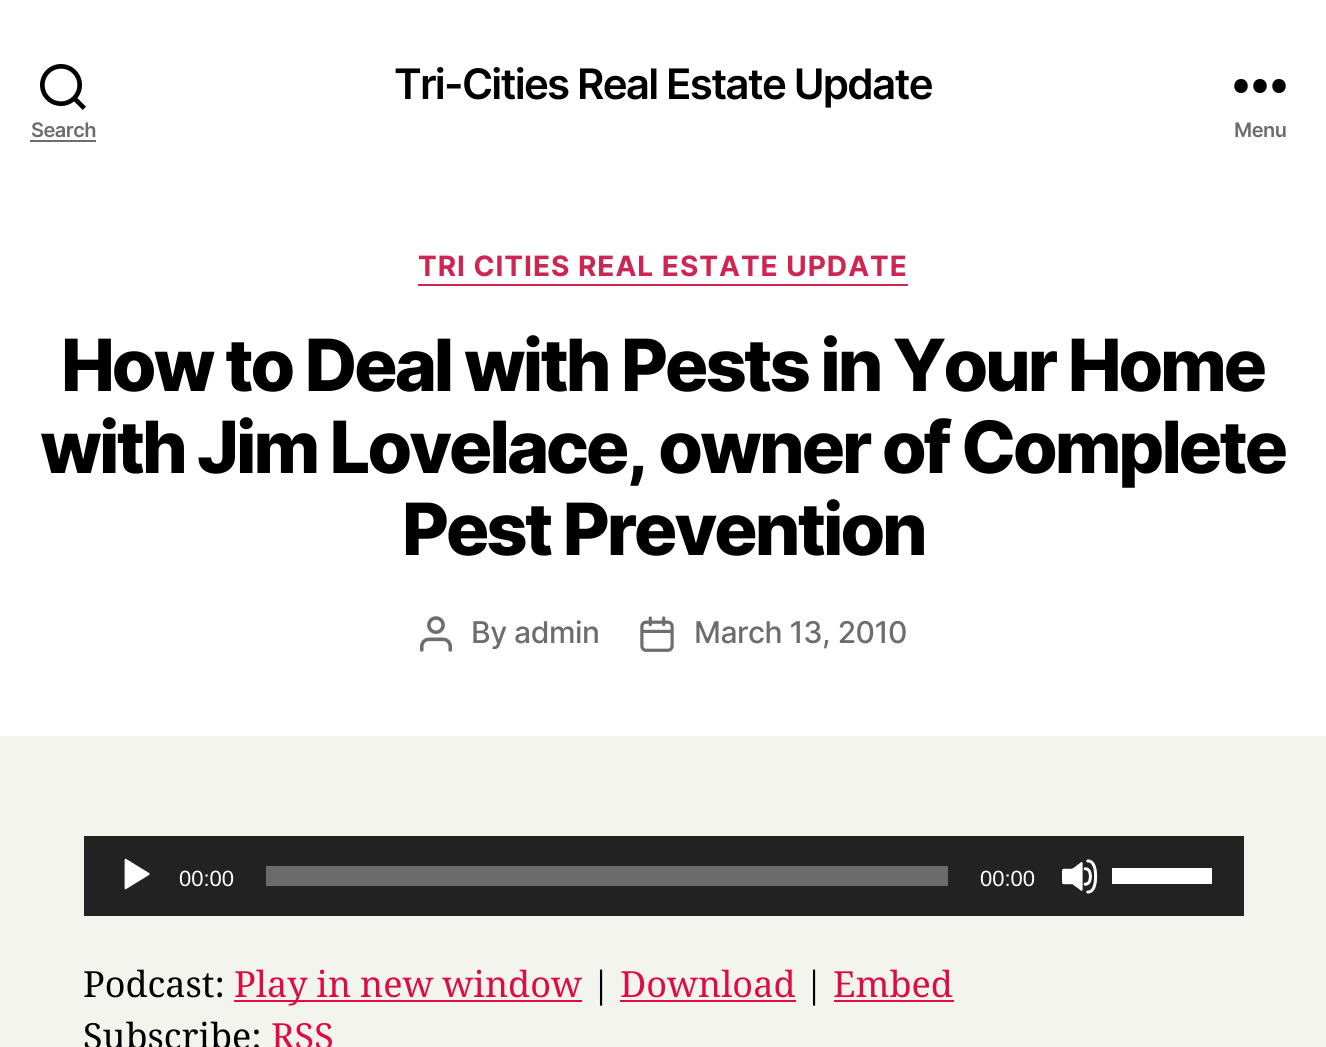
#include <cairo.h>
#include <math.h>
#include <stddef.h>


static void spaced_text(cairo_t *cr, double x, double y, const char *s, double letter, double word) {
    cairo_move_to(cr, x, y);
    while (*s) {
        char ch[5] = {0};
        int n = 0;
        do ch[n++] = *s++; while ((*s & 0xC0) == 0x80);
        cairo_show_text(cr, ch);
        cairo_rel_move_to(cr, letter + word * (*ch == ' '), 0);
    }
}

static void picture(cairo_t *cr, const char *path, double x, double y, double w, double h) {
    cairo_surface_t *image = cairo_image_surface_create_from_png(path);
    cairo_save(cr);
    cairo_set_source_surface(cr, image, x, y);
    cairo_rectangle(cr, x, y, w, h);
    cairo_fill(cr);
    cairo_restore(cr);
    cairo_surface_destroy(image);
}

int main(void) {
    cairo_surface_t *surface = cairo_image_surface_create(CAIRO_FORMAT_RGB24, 1326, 1047);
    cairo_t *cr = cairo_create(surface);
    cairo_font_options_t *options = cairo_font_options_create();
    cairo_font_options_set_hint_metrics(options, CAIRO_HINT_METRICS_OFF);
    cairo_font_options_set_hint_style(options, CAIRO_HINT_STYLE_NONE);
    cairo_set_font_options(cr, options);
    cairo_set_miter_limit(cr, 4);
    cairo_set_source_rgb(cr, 0.957, 0.957, 0.937);
    cairo_paint(cr);
    cairo_set_source_rgb(cr, 1, 1, 1);
    cairo_rectangle(cr, 0, 0, 1326, 736);
    cairo_fill(cr);
    cairo_select_font_face(cr, "Inter SemiBold", CAIRO_FONT_SLANT_NORMAL, CAIRO_FONT_WEIGHT_NORMAL);
    cairo_set_font_size(cr, 42);
    cairo_set_source_rgb(cr, 0, 0, 0);
    spaced_text(cr, 394, 99, "Tri-Cities Real Estate Update", -1.75, 0);
    picture(cr, "img1.png", 40, 64, 46, 46);
    cairo_set_font_size(cr, 20);
    cairo_set_source_rgb(cr, 0.427, 0.427, 0.427);
    spaced_text(cr, 31, 137, "Search", -0.5, 0);
    cairo_rectangle(cr, 30, 140, 66, 2);
    cairo_fill(cr);
    cairo_set_source_rgb(cr, 0, 0, 0);
    cairo_set_fill_rule(cr, CAIRO_FILL_RULE_EVEN_ODD);
    cairo_new_path(cr);
    cairo_move_to(cr, 1241, 93);
    cairo_curve_to(cr, 1232, 93, 1232, 79, 1241, 79);
    cairo_curve_to(cr, 1250, 79, 1250, 93, 1241, 93);
    cairo_close_path(cr);
    cairo_move_to(cr, 1260, 93);
    cairo_curve_to(cr, 1251, 93, 1251, 79, 1260, 79);
    cairo_curve_to(cr, 1269, 79, 1269, 93, 1260, 93);
    cairo_close_path(cr);
    cairo_move_to(cr, 1279, 93);
    cairo_curve_to(cr, 1270, 93, 1270, 79, 1279, 79);
    cairo_curve_to(cr, 1288, 79, 1288, 93, 1279, 93);
    cairo_close_path(cr);
    cairo_fill(cr);
    cairo_set_source_rgb(cr, 0.427, 0.427, 0.427);
    spaced_text(cr, 1234, 137, "Menu", -0.5, 0);
    cairo_set_source_rgb(cr, 0.804, 0.149, 0.325);
    cairo_rectangle(cr, 418, 284, 490, 2);
    cairo_fill(cr);
    cairo_select_font_face(cr, "Inter", CAIRO_FONT_SLANT_NORMAL, CAIRO_FONT_WEIGHT_BOLD);
    cairo_set_font_size(cr, 28);
    spaced_text(cr, 418, 276, "TRI CITIES REAL ESTATE UPDATE", 1, 0);
    cairo_select_font_face(cr, "Inter ExtraBold", CAIRO_FONT_SLANT_NORMAL, CAIRO_FONT_WEIGHT_NORMAL);
    cairo_set_font_size(cr, 72);
    cairo_set_source_rgb(cr, 0, 0, 0);
    spaced_text(cr, 61, 391, "How to Deal with Pests in Your Home", -3, 0);
    spaced_text(cr, 40, 473, "with Jim Lovelace, owner of Complete", -3, 0);
    spaced_text(cr, 402, 555, "Pest Prevention", -3, 0);
    picture(cr, "img2.png", 420, 616, 32, 36);
    cairo_select_font_face(cr, "Inter Medium", CAIRO_FONT_SLANT_NORMAL, CAIRO_FONT_WEIGHT_NORMAL);
    cairo_set_font_size(cr, 30);
    cairo_set_source_rgb(cr, 0.427, 0.427, 0.427);
    spaced_text(cr, 471, 643, "By admin", -0.5, 0);
    picture(cr, "img3.png", 640, 616, 34, 36);
    spaced_text(cr, 694, 643, "March 13, 2010", -0.5, 0);
    cairo_set_source_rgb(cr, 0.133, 0.133, 0.133);
    cairo_rectangle(cr, 84, 836, 1160, 80);
    cairo_fill(cr);
    picture(cr, "img4.png", 124, 858, 26, 32);
    cairo_select_font_face(cr, "Liberation Sans", CAIRO_FONT_SLANT_NORMAL, CAIRO_FONT_WEIGHT_NORMAL);
    cairo_set_font_size(cr, 22);
    cairo_set_source_rgb(cr, 1, 1, 1);
    cairo_move_to(cr, 179, 886);
    cairo_show_text(cr, "00:00");
    cairo_set_source_rgb(cr, 0.42, 0.42, 0.42);
    cairo_rectangle(cr, 266, 866, 682, 20);
    cairo_fill(cr);
    cairo_set_source_rgb(cr, 1, 1, 1);
    cairo_move_to(cr, 980, 886);
    cairo_show_text(cr, "00:00");
    picture(cr, "img5.png", 1062, 859, 36, 35);
    cairo_rectangle(cr, 1112, 868, 100, 16);
    cairo_fill(cr);
    cairo_select_font_face(cr, "Noto Serif", CAIRO_FONT_SLANT_NORMAL, CAIRO_FONT_WEIGHT_NORMAL);
    cairo_set_font_size(cr, 36);
    cairo_set_source_rgb(cr, 0, 0, 0);
    cairo_move_to(cr, 83, 997);
    cairo_show_text(cr, "Podcast:");
    cairo_set_source_rgb(cr, 0.867, 0.047, 0.267);
    cairo_rectangle(cr, 234, 1000, 348, 2);
    cairo_fill(cr);
    spaced_text(cr, 234, 997, "Play in new window", 0, -0.5);
    cairo_set_source_rgb(cr, 0, 0, 0);
    cairo_move_to(cr, 591, 997);
    cairo_show_text(cr, "|");
    cairo_set_source_rgb(cr, 0.867, 0.047, 0.267);
    cairo_move_to(cr, 620, 997);
    cairo_show_text(cr, "Download");
    cairo_rectangle(cr, 620, 1000, 176, 2);
    cairo_fill(cr);
    cairo_set_source_rgb(cr, 0, 0, 0);
    cairo_move_to(cr, 804, 997);
    cairo_show_text(cr, "|");
    cairo_set_source_rgb(cr, 0.867, 0.047, 0.267);
    cairo_move_to(cr, 833, 997);
    cairo_show_text(cr, "Embed");
    cairo_rectangle(cr, 834, 1000, 120, 2);
    cairo_fill(cr);
    cairo_set_source_rgb(cr, 0, 0, 0);
    cairo_move_to(cr, 83, 1049);
    cairo_show_text(cr, "Subscribe:");
    cairo_set_source_rgb(cr, 0.867, 0.047, 0.267);
    cairo_move_to(cr, 271, 1049);
    cairo_show_text(cr, "RSS");
    cairo_surface_write_to_png(surface, "page.png");
    cairo_font_options_destroy(options);
    cairo_destroy(cr);
    cairo_surface_destroy(surface);
    return 0;
}
